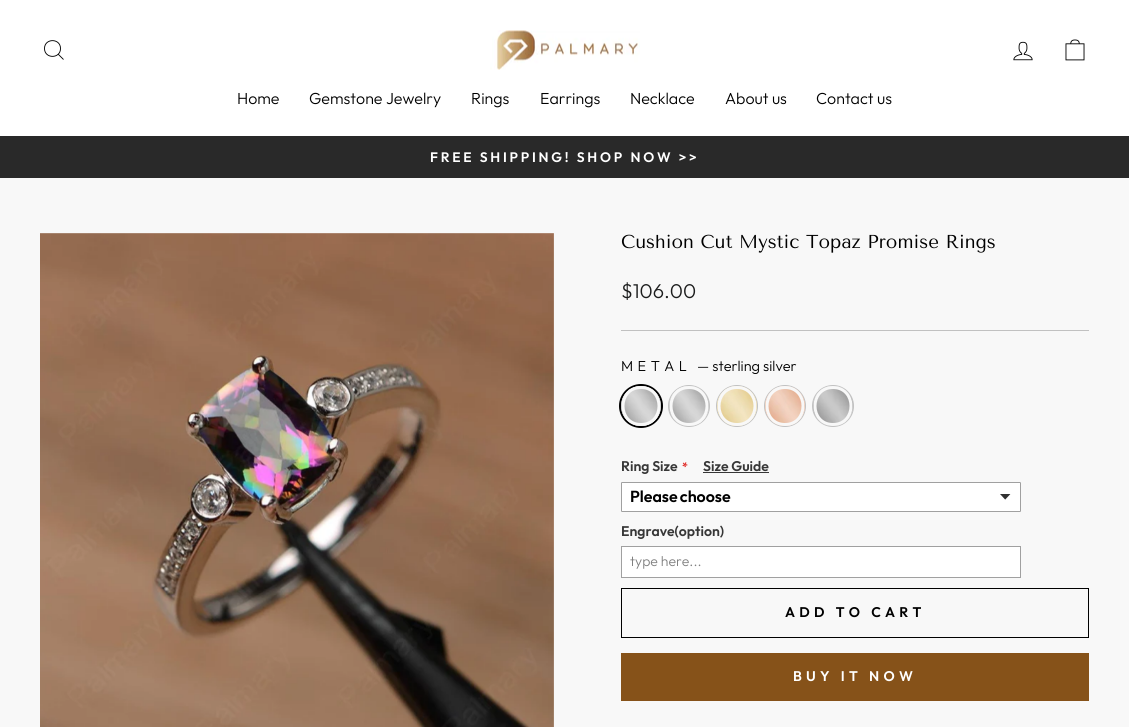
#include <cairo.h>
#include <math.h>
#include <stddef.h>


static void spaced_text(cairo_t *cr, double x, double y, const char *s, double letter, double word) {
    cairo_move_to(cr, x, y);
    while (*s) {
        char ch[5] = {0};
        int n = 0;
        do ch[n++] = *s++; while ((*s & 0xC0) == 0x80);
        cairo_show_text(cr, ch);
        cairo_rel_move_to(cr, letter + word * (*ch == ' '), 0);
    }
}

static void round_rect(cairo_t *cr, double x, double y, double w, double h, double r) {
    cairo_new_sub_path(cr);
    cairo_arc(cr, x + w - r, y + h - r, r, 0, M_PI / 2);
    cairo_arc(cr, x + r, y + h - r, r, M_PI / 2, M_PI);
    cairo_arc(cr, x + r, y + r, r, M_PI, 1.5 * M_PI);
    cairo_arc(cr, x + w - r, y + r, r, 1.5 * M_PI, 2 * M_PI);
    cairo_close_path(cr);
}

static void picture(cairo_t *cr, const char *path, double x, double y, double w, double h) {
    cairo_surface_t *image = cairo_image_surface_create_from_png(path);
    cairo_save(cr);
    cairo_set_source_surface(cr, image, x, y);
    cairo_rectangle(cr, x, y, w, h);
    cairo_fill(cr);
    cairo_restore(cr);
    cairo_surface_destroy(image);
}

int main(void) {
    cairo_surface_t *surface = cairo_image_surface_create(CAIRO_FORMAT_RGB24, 1129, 727);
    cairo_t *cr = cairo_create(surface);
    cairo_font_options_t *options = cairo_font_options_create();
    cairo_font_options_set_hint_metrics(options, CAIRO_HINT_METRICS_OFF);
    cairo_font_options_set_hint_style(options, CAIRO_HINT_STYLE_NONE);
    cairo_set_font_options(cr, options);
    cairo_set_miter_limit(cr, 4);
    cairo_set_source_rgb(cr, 0.969, 0.969, 0.969);
    cairo_paint(cr);
    cairo_set_source_rgb(cr, 1, 1, 1);
    cairo_rectangle(cr, 0, 0, 1129, 136);
    cairo_fill(cr);
    cairo_new_path(cr);
    cairo_move_to(cr, 60.5, 48.5);
    cairo_curve_to(cr, 60.5, 59, 44.5, 59, 44.5, 48.5);
    cairo_curve_to(cr, 44.5, 38, 60.5, 38, 60.5, 48.5);
    cairo_close_path(cr);
    cairo_move_to(cr, 63.5, 59.5);
    cairo_line_to(cr, 58.5, 54.5);
    cairo_set_source_rgb(cr, 0, 0, 0);
    cairo_set_line_width(cr, 0.9);
    cairo_stroke(cr);
    picture(cr, "img1.png", 490, 30, 150, 40);
    picture(cr, "img2.png", 1013, 41, 20, 20);
    picture(cr, "img3.png", 1065, 39, 20, 22);
    cairo_select_font_face(cr, "Outfit Light", CAIRO_FONT_SLANT_NORMAL, CAIRO_FONT_WEIGHT_NORMAL);
    cairo_set_font_size(cr, 16);
    cairo_move_to(cr, 237, 104);
    cairo_show_text(cr, "Home");
    cairo_move_to(cr, 309, 104);
    cairo_show_text(cr, "Gemstone Jewelry");
    cairo_move_to(cr, 471, 104);
    cairo_show_text(cr, "Rings");
    cairo_move_to(cr, 540, 104);
    cairo_show_text(cr, "Earrings");
    cairo_move_to(cr, 630, 104);
    cairo_show_text(cr, "Necklace");
    cairo_move_to(cr, 725, 104);
    cairo_show_text(cr, "About us");
    cairo_move_to(cr, 816, 104);
    cairo_show_text(cr, "Contact us");
    cairo_set_source_rgb(cr, 0.161, 0.161, 0.161);
    cairo_rectangle(cr, 0, 136, 1129, 42);
    cairo_fill(cr);
    cairo_select_font_face(cr, "Outfit SemiBold", CAIRO_FONT_SLANT_NORMAL, CAIRO_FONT_WEIGHT_NORMAL);
    cairo_set_font_size(cr, 13.75);
    cairo_set_source_rgb(cr, 1, 1, 1);
    spaced_text(cr, 430, 162, "FREE SHIPPING! SHOP NOW >>", 2.75, 0);
    picture(cr, "img4.png", 40, 233, 514, 494);
    cairo_select_font_face(cr, "Tenor Sans", CAIRO_FONT_SLANT_NORMAL, CAIRO_FONT_WEIGHT_NORMAL);
    cairo_set_font_size(cr, 18.7);
    cairo_set_source_rgb(cr, 0, 0, 0);
    cairo_move_to(cr, 621, 248);
    cairo_show_text(cr, "Cushion Cut Mystic Topaz Promise Rings");
    cairo_select_font_face(cr, "Outfit Light", CAIRO_FONT_SLANT_NORMAL, CAIRO_FONT_WEIGHT_NORMAL);
    cairo_set_font_size(cr, 20);
    cairo_set_source_rgb(cr, 0.11, 0.114, 0.114);
    cairo_move_to(cr, 621, 298);
    cairo_show_text(cr, "$106.00");
    cairo_set_source_rgb(cr, 0.757, 0.757, 0.757);
    cairo_rectangle(cr, 621, 330, 468, 1);
    cairo_fill(cr);
    cairo_set_font_size(cr, 14.5);
    cairo_set_source_rgb(cr, 0, 0, 0);
    spaced_text(cr, 621, 371, "METAL", 4.5, 0);
    cairo_move_to(cr, 697, 371);
    cairo_show_text(cr, "— sterling silver");
    cairo_new_path(cr);
    cairo_arc(cr, 641, 406, 21, 0, 2 * M_PI);
    cairo_set_line_width(cr, 2);
    cairo_stroke(cr);
    picture(cr, "img5.png", 621, 386, 40, 40);
    cairo_set_source_rgb(cr, 0.969, 0.969, 0.969);
    cairo_set_fill_rule(cr, CAIRO_FILL_RULE_EVEN_ODD);
    cairo_new_path(cr);
    cairo_move_to(cr, 641, 386);
    cairo_curve_to(cr, 615, 386, 615, 426, 641, 426);
    cairo_curve_to(cr, 667, 426, 667, 386, 641, 386);
    cairo_close_path(cr);
    cairo_move_to(cr, 641, 389);
    cairo_curve_to(cr, 619, 389, 619, 423, 641, 423);
    cairo_curve_to(cr, 663, 423, 663, 389, 641, 389);
    cairo_close_path(cr);
    cairo_fill(cr);
    cairo_arc(cr, 689, 406, 20.5, 0, 2 * M_PI);
    cairo_set_source_rgb(cr, 0.757, 0.757, 0.757);
    cairo_set_line_width(cr, 1);
    cairo_stroke(cr);
    picture(cr, "img6.png", 669, 386, 40, 40);
    cairo_set_source_rgb(cr, 0.969, 0.969, 0.969);
    cairo_new_path(cr);
    cairo_move_to(cr, 689, 386);
    cairo_curve_to(cr, 663, 386, 663, 426, 689, 426);
    cairo_curve_to(cr, 715, 426, 715, 386, 689, 386);
    cairo_close_path(cr);
    cairo_move_to(cr, 689, 389);
    cairo_curve_to(cr, 667, 389, 667, 423, 689, 423);
    cairo_curve_to(cr, 711, 423, 711, 389, 689, 389);
    cairo_close_path(cr);
    cairo_fill(cr);
    cairo_arc(cr, 737, 406, 20.5, 0, 2 * M_PI);
    cairo_set_source_rgb(cr, 0.757, 0.757, 0.757);
    cairo_stroke(cr);
    picture(cr, "img7.png", 717, 386, 40, 40);
    cairo_set_source_rgb(cr, 0.969, 0.969, 0.969);
    cairo_new_path(cr);
    cairo_move_to(cr, 737, 386);
    cairo_curve_to(cr, 711, 386, 711, 426, 737, 426);
    cairo_curve_to(cr, 763, 426, 763, 386, 737, 386);
    cairo_close_path(cr);
    cairo_move_to(cr, 737, 389);
    cairo_curve_to(cr, 715, 389, 715, 423, 737, 423);
    cairo_curve_to(cr, 759, 423, 759, 389, 737, 389);
    cairo_close_path(cr);
    cairo_fill(cr);
    cairo_arc(cr, 785, 406, 20.5, 0, 2 * M_PI);
    cairo_set_source_rgb(cr, 0.757, 0.757, 0.757);
    cairo_stroke(cr);
    picture(cr, "img8.png", 765, 386, 40, 40);
    cairo_set_source_rgb(cr, 0.969, 0.969, 0.969);
    cairo_new_path(cr);
    cairo_move_to(cr, 785, 386);
    cairo_curve_to(cr, 759, 386, 759, 426, 785, 426);
    cairo_curve_to(cr, 811, 426, 811, 386, 785, 386);
    cairo_close_path(cr);
    cairo_move_to(cr, 785, 389);
    cairo_curve_to(cr, 763, 389, 763, 423, 785, 423);
    cairo_curve_to(cr, 807, 423, 807, 389, 785, 389);
    cairo_close_path(cr);
    cairo_fill(cr);
    cairo_arc(cr, 833, 406, 20.5, 0, 2 * M_PI);
    cairo_set_source_rgb(cr, 0.757, 0.757, 0.757);
    cairo_stroke(cr);
    picture(cr, "img9.png", 813, 386, 40, 40);
    cairo_set_source_rgb(cr, 0.969, 0.969, 0.969);
    cairo_new_path(cr);
    cairo_move_to(cr, 833, 386);
    cairo_curve_to(cr, 807, 386, 807, 426, 833, 426);
    cairo_curve_to(cr, 859, 426, 859, 386, 833, 386);
    cairo_close_path(cr);
    cairo_move_to(cr, 833, 389);
    cairo_curve_to(cr, 811, 389, 811, 423, 833, 423);
    cairo_curve_to(cr, 855, 423, 855, 389, 833, 389);
    cairo_close_path(cr);
    cairo_fill(cr);
    cairo_select_font_face(cr, "Outfit SemiBold", CAIRO_FONT_SLANT_NORMAL, CAIRO_FONT_WEIGHT_NORMAL);
    cairo_set_font_size(cr, 14);
    cairo_set_source_rgb(cr, 0.216, 0.216, 0.216);
    cairo_move_to(cr, 621, 471);
    cairo_show_text(cr, "Ring Size");
    cairo_set_font_size(cr, 12);
    cairo_set_source_rgb(cr, 0.878, 0.169, 0.153);
    cairo_move_to(cr, 682, 471);
    cairo_show_text(cr, "*");
    cairo_set_font_size(cr, 14);
    cairo_set_source_rgb(cr, 0.216, 0.216, 0.216);
    cairo_move_to(cr, 703, 471);
    cairo_show_text(cr, "Size Guide");
    cairo_rectangle(cr, 703, 472, 66, 1);
    cairo_fill(cr);
    cairo_set_source_rgb(cr, 1, 1, 1);
    round_rect(cr, 621, 482, 400, 30, 1);
    cairo_fill(cr);
    picture(cr, "img10.png", 1000, 494, 11, 6);
    round_rect(cr, 621.5, 482.5, 399, 29, 0.5);
    cairo_set_source_rgb(cr, 0.627, 0.627, 0.627);
    cairo_stroke(cr);
    cairo_set_font_size(cr, 16);
    cairo_set_source_rgb(cr, 0, 0, 0);
    spaced_text(cr, 630, 502, "Please choose", 0, -1);
    cairo_set_font_size(cr, 14);
    cairo_set_source_rgb(cr, 0.216, 0.216, 0.216);
    cairo_move_to(cr, 621, 536);
    cairo_show_text(cr, "Engrave(option)");
    cairo_set_source_rgb(cr, 1, 1, 1);
    cairo_rectangle(cr, 621.5, 546.5, 399, 31);
    cairo_fill_preserve(cr);
    cairo_set_source_rgb(cr, 0.627, 0.627, 0.627);
    cairo_stroke(cr);
    cairo_select_font_face(cr, "Outfit Light", CAIRO_FONT_SLANT_NORMAL, CAIRO_FONT_WEIGHT_NORMAL);
    cairo_set_source_rgb(cr, 0.502, 0.502, 0.502);
    cairo_move_to(cr, 630, 566);
    cairo_show_text(cr, "type here...");
    cairo_rectangle(cr, 621.5, 588.5, 467, 49);
    cairo_set_source_rgb(cr, 0, 0, 0);
    cairo_stroke(cr);
    cairo_select_font_face(cr, "Outfit SemiBold", CAIRO_FONT_SLANT_NORMAL, CAIRO_FONT_WEIGHT_NORMAL);
    spaced_text(cr, 785, 617, "ADD TO CART", 4.25, 0);
    cairo_set_source_rgb(cr, 0.525, 0.322, 0.098);
    cairo_rectangle(cr, 621, 653, 468, 48);
    cairo_fill(cr);
    cairo_set_source_rgb(cr, 1, 1, 1);
    spaced_text(cr, 793, 681, "BUY IT NOW", 4.25, 0);
    cairo_surface_write_to_png(surface, "page.png");
    cairo_font_options_destroy(options);
    cairo_destroy(cr);
    cairo_surface_destroy(surface);
    return 0;
}
